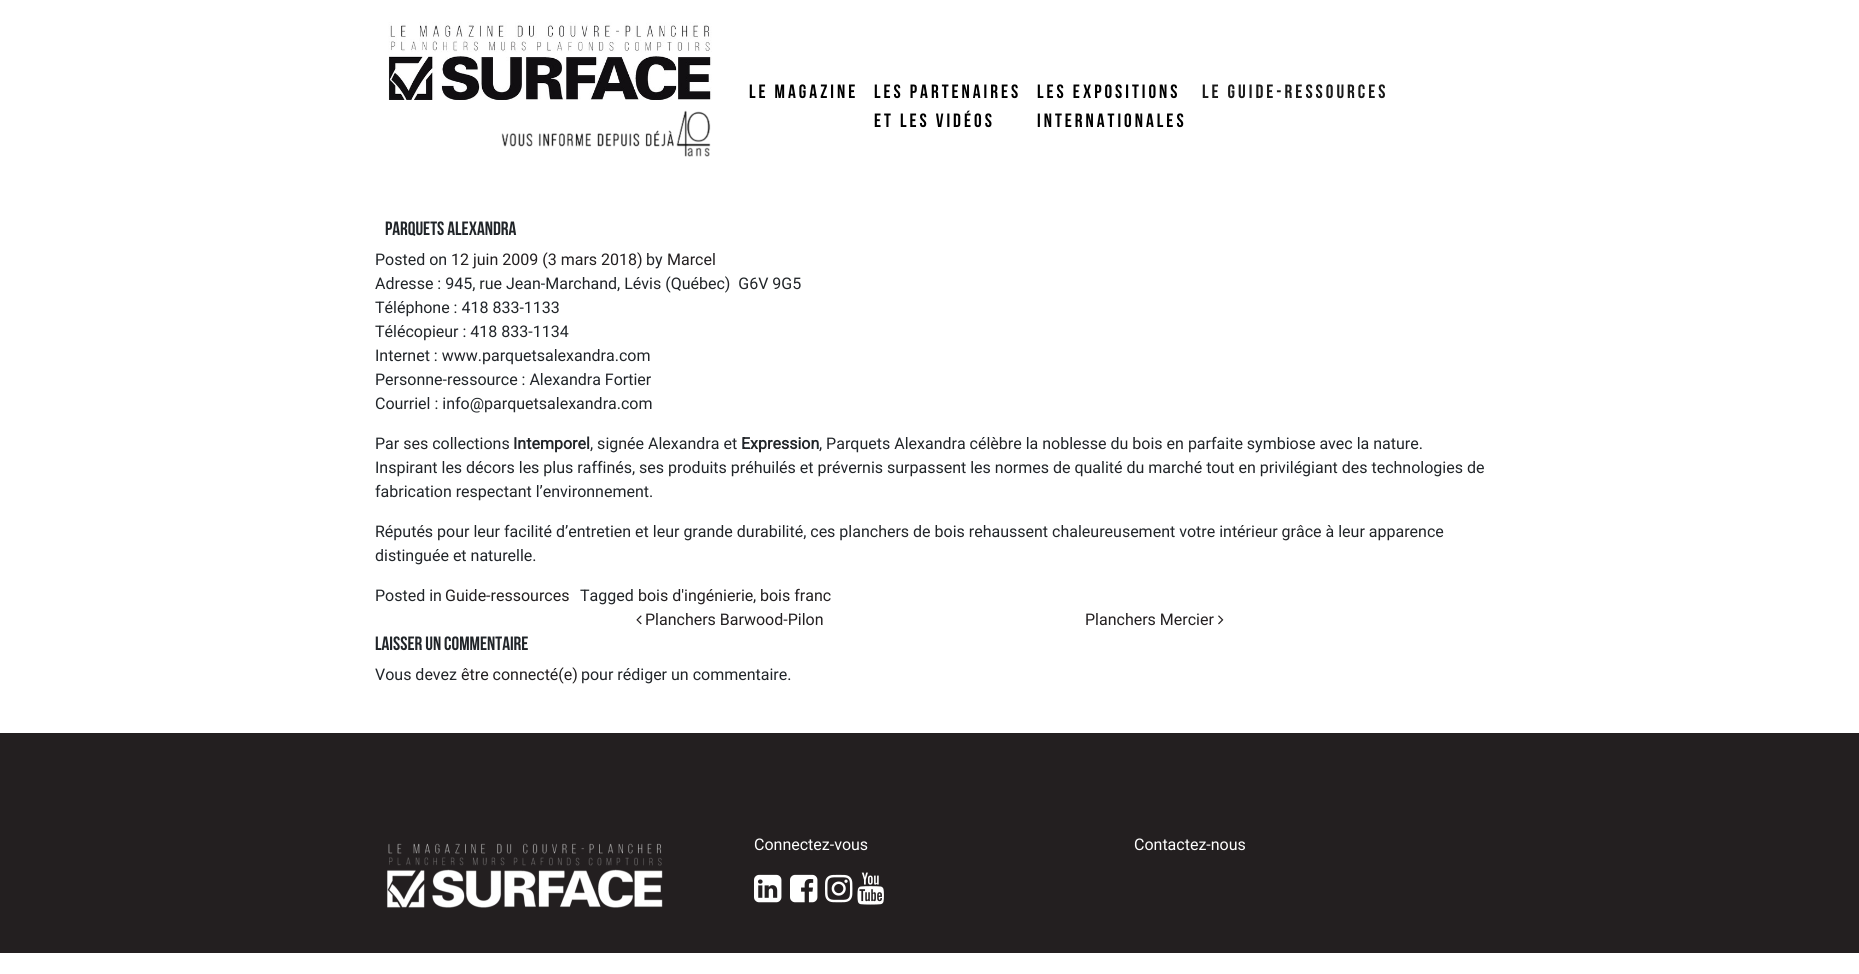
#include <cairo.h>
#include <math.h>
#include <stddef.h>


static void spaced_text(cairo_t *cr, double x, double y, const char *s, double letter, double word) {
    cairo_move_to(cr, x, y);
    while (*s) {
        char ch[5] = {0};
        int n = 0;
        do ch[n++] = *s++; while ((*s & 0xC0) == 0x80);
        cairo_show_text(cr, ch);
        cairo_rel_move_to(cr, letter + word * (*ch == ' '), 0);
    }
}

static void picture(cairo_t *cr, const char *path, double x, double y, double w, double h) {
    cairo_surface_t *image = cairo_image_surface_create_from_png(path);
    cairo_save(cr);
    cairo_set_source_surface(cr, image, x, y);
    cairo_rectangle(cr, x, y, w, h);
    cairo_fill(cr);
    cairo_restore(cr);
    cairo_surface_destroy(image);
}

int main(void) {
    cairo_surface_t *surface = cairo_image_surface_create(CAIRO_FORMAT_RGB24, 1859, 974);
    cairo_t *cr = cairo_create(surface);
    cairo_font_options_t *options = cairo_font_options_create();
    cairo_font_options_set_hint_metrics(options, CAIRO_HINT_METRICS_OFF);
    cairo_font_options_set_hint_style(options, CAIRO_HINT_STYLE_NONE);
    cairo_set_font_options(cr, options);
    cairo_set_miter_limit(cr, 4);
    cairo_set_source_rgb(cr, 1, 1, 1);
    cairo_paint(cr);
    picture(cr, "img1.png", 388, 22, 324, 78);
    picture(cr, "img2.png", 501, 110, 210, 47);
    cairo_select_font_face(cr, "Bebas Neue", CAIRO_FONT_SLANT_NORMAL, CAIRO_FONT_WEIGHT_NORMAL);
    cairo_set_font_size(cr, 19.25);
    cairo_set_source_rgb(cr, 0, 0, 0);
    spaced_text(cr, 749, 98, "LE MAGAZINE", 3, 0);
    spaced_text(cr, 874, 98, "LES PARTENAIRES", 3, 0);
    spaced_text(cr, 874, 127, "ET LES VIDÉOS", 3, 0);
    spaced_text(cr, 1037, 98, "LES EXPOSITIONS", 3, 0);
    spaced_text(cr, 1037, 127, "INTERNATIONALES", 3, 0);
    cairo_set_source_rgb(cr, 0.102, 0.102, 0.102);
    spaced_text(cr, 1202, 98, "LE GUIDE-RESSOURCES", 3, 0);
    cairo_set_source_rgb(cr, 0.129, 0.145, 0.161);
    cairo_move_to(cr, 385, 235);
    cairo_show_text(cr, "Parquets Alexandra");
    cairo_select_font_face(cr, "Roboto", CAIRO_FONT_SLANT_NORMAL, CAIRO_FONT_WEIGHT_NORMAL);
    cairo_set_font_size(cr, 16);
    cairo_move_to(cr, 375, 265);
    cairo_show_text(cr, "Posted on");
    cairo_set_source_rgb(cr, 0.137, 0.122, 0.125);
    cairo_move_to(cr, 451, 265);
    cairo_show_text(cr, "12 juin 2009 (3 mars 2018)");
    cairo_set_source_rgb(cr, 0.129, 0.145, 0.161);
    cairo_move_to(cr, 646, 265);
    cairo_show_text(cr, "by");
    cairo_set_source_rgb(cr, 0.137, 0.122, 0.125);
    cairo_move_to(cr, 667, 265);
    cairo_show_text(cr, "Marcel");
    cairo_set_source_rgb(cr, 0.129, 0.145, 0.161);
    cairo_move_to(cr, 375, 289);
    cairo_show_text(cr, "Adresse : 945, rue Jean-Marchand, Lévis (Québec)  G6V 9G5");
    cairo_move_to(cr, 375, 313);
    cairo_show_text(cr, "Téléphone : 418 833-1133");
    cairo_move_to(cr, 375, 337);
    cairo_show_text(cr, "Télécopieur : 418 833-1134");
    cairo_move_to(cr, 375, 361);
    cairo_show_text(cr, "Internet : www.parquetsalexandra.com");
    cairo_move_to(cr, 375, 385);
    cairo_show_text(cr, "Personne-ressource : Alexandra Fortier");
    cairo_move_to(cr, 375, 409);
    cairo_show_text(cr, "Courriel : info@parquetsalexandra.com");
    cairo_move_to(cr, 375, 449);
    cairo_show_text(cr, "Par ses collections");
    cairo_select_font_face(cr, "Roboto", CAIRO_FONT_SLANT_NORMAL, CAIRO_FONT_WEIGHT_BOLD);
    cairo_move_to(cr, 513, 449);
    cairo_show_text(cr, "Intemporel");
    cairo_select_font_face(cr, "Roboto", CAIRO_FONT_SLANT_NORMAL, CAIRO_FONT_WEIGHT_NORMAL);
    cairo_move_to(cr, 590, 449);
    cairo_show_text(cr, ", signée Alexandra et");
    cairo_select_font_face(cr, "Roboto", CAIRO_FONT_SLANT_NORMAL, CAIRO_FONT_WEIGHT_BOLD);
    cairo_move_to(cr, 741, 449);
    cairo_show_text(cr, "Expression");
    cairo_select_font_face(cr, "Roboto", CAIRO_FONT_SLANT_NORMAL, CAIRO_FONT_WEIGHT_NORMAL);
    cairo_move_to(cr, 819, 449);
    cairo_show_text(cr, ", Parquets Alexandra célèbre la noblesse du bois en parfaite symbiose avec la nature.");
    cairo_move_to(cr, 375, 473);
    cairo_show_text(cr, "Inspirant les décors les plus raffinés, ses produits préhuilés et prévernis surpassent les normes de qualité du marché tout en privilégiant des technologies de");
    cairo_move_to(cr, 375, 497);
    cairo_show_text(cr, "fabrication respectant l’environnement.");
    cairo_move_to(cr, 375, 537);
    cairo_show_text(cr, "Réputés pour leur facilité d’entretien et leur grande durabilité, ces planchers de bois rehaussent chaleureusement votre intérieur grâce à leur apparence");
    cairo_move_to(cr, 375, 561);
    cairo_show_text(cr, "distinguée et naturelle.");
    cairo_move_to(cr, 375, 601);
    cairo_show_text(cr, "Posted in");
    cairo_set_source_rgb(cr, 0.137, 0.122, 0.125);
    cairo_move_to(cr, 445, 601);
    cairo_show_text(cr, "Guide-ressources");
    cairo_set_source_rgb(cr, 0.129, 0.145, 0.161);
    cairo_move_to(cr, 580, 601);
    cairo_show_text(cr, "Tagged");
    cairo_set_source_rgb(cr, 0.137, 0.122, 0.125);
    cairo_move_to(cr, 638, 601);
    cairo_show_text(cr, "bois d'ingénierie");
    cairo_set_source_rgb(cr, 0.129, 0.145, 0.161);
    cairo_move_to(cr, 753, 601);
    cairo_show_text(cr, ",");
    cairo_set_source_rgb(cr, 0.137, 0.122, 0.125);
    cairo_move_to(cr, 760, 601);
    cairo_show_text(cr, "bois franc");
    picture(cr, "img3.png", 636, 615, 6, 10);
    cairo_move_to(cr, 645, 625);
    cairo_show_text(cr, "Planchers Barwood-Pilon");
    cairo_move_to(cr, 1085, 625);
    cairo_show_text(cr, "Planchers Mercier");
    picture(cr, "img4.png", 1218, 615, 6, 10);
    cairo_select_font_face(cr, "Bebas Neue", CAIRO_FONT_SLANT_NORMAL, CAIRO_FONT_WEIGHT_NORMAL);
    cairo_set_font_size(cr, 19.25);
    cairo_set_source_rgb(cr, 0.129, 0.145, 0.161);
    cairo_move_to(cr, 375, 650);
    cairo_show_text(cr, "Laisser un commentaire");
    cairo_select_font_face(cr, "Roboto", CAIRO_FONT_SLANT_NORMAL, CAIRO_FONT_WEIGHT_NORMAL);
    cairo_set_font_size(cr, 16);
    cairo_move_to(cr, 375, 680);
    cairo_show_text(cr, "Vous devez");
    cairo_set_source_rgb(cr, 0.137, 0.122, 0.125);
    cairo_move_to(cr, 461, 680);
    cairo_show_text(cr, "être connecté(e)");
    cairo_set_source_rgb(cr, 0.129, 0.145, 0.161);
    cairo_move_to(cr, 581, 680);
    cairo_show_text(cr, "pour rédiger un commentaire.");
    cairo_set_source_rgb(cr, 0.137, 0.122, 0.125);
    cairo_rectangle(cr, 0, 733, 1859, 220);
    cairo_fill(cr);
    picture(cr, "img5.png", 387, 843, 276, 65);
    cairo_set_source_rgb(cr, 1, 1, 1);
    cairo_move_to(cr, 754, 850);
    cairo_show_text(cr, "Connectez-vous");
    picture(cr, "img6.png", 754, 874, 28, 29);
    picture(cr, "img7.png", 790, 874, 28, 29);
    picture(cr, "img8.png", 825, 874, 28, 29);
    picture(cr, "img9.png", 857, 872, 27, 33);
    cairo_move_to(cr, 1134, 850);
    cairo_show_text(cr, "Contactez-nous");
    cairo_surface_write_to_png(surface, "page.png");
    cairo_font_options_destroy(options);
    cairo_destroy(cr);
    cairo_surface_destroy(surface);
    return 0;
}
